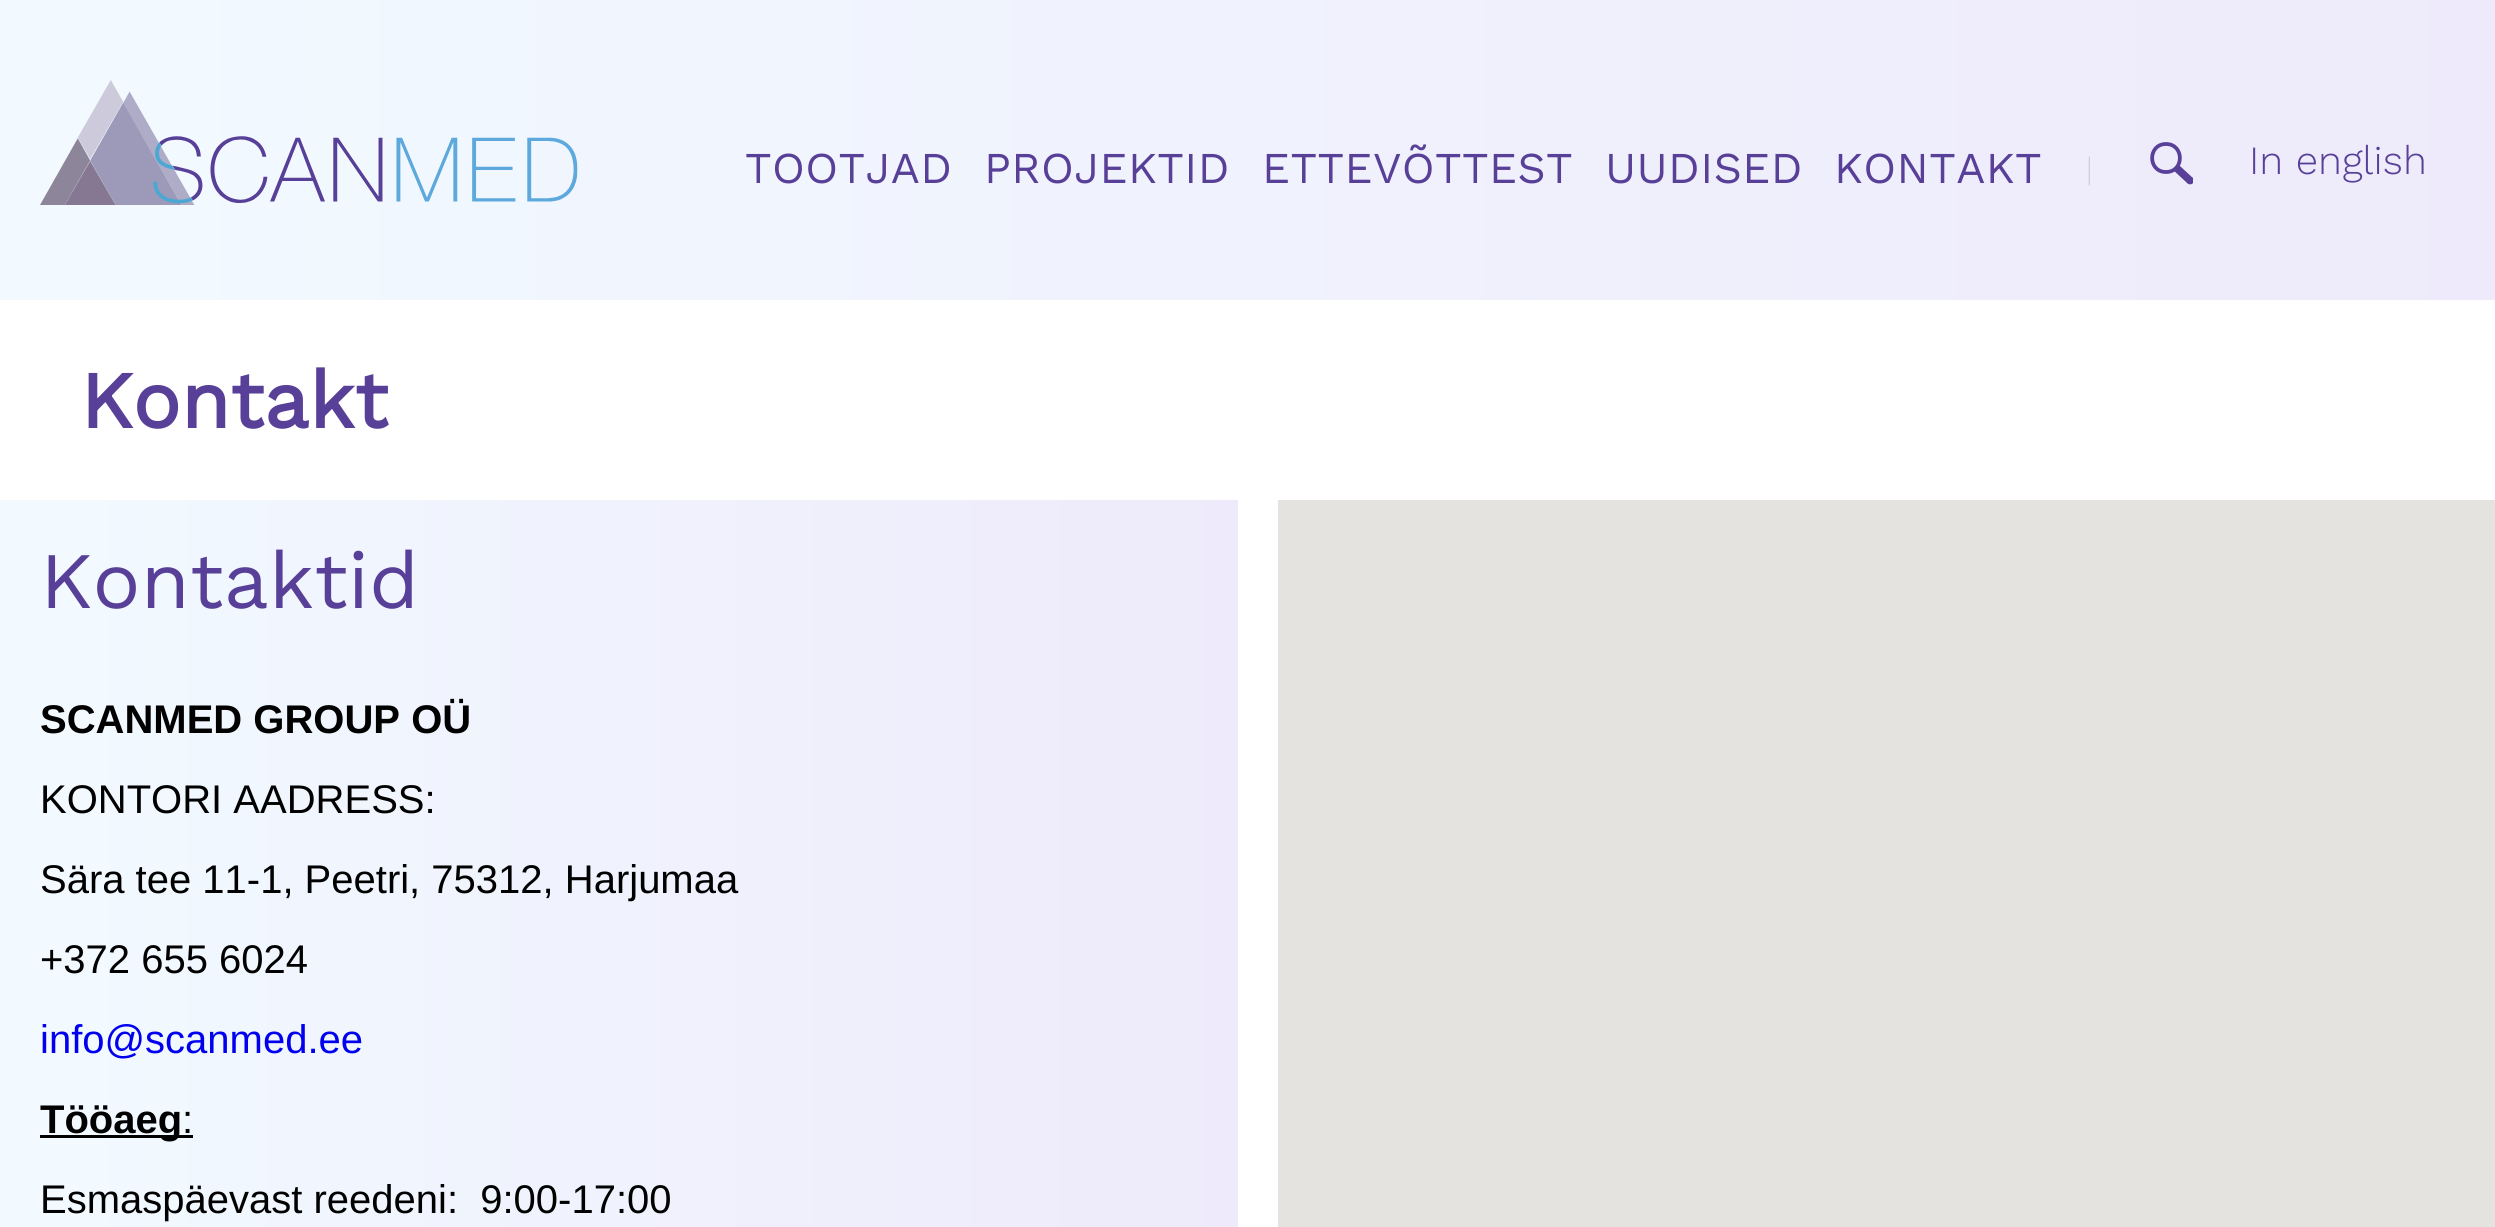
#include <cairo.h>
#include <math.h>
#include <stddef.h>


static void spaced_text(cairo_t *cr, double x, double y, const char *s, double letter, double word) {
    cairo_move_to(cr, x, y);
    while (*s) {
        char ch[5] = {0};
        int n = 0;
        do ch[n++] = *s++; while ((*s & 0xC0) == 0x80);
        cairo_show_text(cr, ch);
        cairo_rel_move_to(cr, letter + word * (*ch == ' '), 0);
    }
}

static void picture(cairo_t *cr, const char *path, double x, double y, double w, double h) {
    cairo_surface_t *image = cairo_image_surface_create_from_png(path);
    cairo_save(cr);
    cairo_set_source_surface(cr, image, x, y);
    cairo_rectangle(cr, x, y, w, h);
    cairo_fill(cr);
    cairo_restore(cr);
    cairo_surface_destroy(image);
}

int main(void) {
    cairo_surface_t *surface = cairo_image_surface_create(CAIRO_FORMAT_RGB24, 2495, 1227);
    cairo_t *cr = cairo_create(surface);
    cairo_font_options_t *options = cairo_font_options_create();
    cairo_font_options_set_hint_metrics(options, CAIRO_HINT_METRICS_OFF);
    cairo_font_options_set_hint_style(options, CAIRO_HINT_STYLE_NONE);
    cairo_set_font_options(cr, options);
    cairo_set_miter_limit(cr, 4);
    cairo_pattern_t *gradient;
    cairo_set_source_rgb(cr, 1, 1, 1);
    cairo_paint(cr);
    gradient = cairo_pattern_create_linear(0, 150, 2495, 150);
    cairo_pattern_add_color_stop_rgba(gradient, 0, 0.949, 0.98, 1, 1);
    cairo_pattern_add_color_stop_rgba(gradient, 1, 0.933, 0.918, 0.984, 1);
    cairo_set_source(cr, gradient);
    cairo_pattern_destroy(gradient);
    cairo_rectangle(cr, 0, 0, 2495, 300);
    cairo_fill(cr);
    picture(cr, "img1.png", 40, 80, 538, 125);
    cairo_select_font_face(cr, "Work Sans", CAIRO_FONT_SLANT_NORMAL, CAIRO_FONT_WEIGHT_NORMAL);
    cairo_set_font_size(cr, 44);
    cairo_set_source_rgb(cr, 0.345, 0.247, 0.596);
    spaced_text(cr, 745, 183, "TOOTJAD", 0.4, 0);
    spaced_text(cr, 984, 183, "PROJEKTID", 0.4, 0);
    spaced_text(cr, 1262, 183, "ETTEVÕTTEST", 0.4, 0);
    spaced_text(cr, 1605, 183, "UUDISED", 0.4, 0);
    spaced_text(cr, 1834, 183, "KONTAKT", 0.4, 0);
    cairo_select_font_face(cr, "Work Sans Light", CAIRO_FONT_SLANT_NORMAL, CAIRO_FONT_WEIGHT_NORMAL);
    cairo_set_font_size(cr, 32);
    cairo_set_source_rgb(cr, 0.831, 0.804, 0.906);
    cairo_move_to(cr, 2086, 180);
    cairo_show_text(cr, "|");
    cairo_new_path(cr);
    cairo_move_to(cr, 2166, 144);
    cairo_curve_to(cr, 2147.5, 144, 2147.5, 172, 2166, 172);
    cairo_curve_to(cr, 2184.5, 172, 2184.5, 144, 2166, 144);
    cairo_close_path(cr);
    cairo_set_source_rgb(cr, 0.349, 0.251, 0.596);
    cairo_set_line_width(cr, 3.8);
    cairo_stroke(cr);
    cairo_new_path(cr);
    cairo_move_to(cr, 2176, 167.5);
    cairo_line_to(cr, 2190, 180.5);
    cairo_set_source_rgb(cr, 0.345, 0.247, 0.596);
    cairo_set_line_width(cr, 7.6);
    cairo_stroke(cr);
    cairo_arc(cr, 2190.1, 180.6, 1.6, 0, 2 * M_PI);
    cairo_fill(cr);
    cairo_save(cr);
    cairo_rectangle(cr, 2150, 140, 43, 45);
    cairo_clip(cr);
    cairo_arc(cr, 2190.1, 180.6, 1.6, 0, 2 * M_PI);
    cairo_set_line_width(cr, 4.4);
    cairo_stroke(cr);
    cairo_restore(cr);
    cairo_set_font_size(cr, 40);
    cairo_move_to(cr, 2249, 174);
    cairo_show_text(cr, "In english");
    cairo_select_font_face(cr, "Work Sans", CAIRO_FONT_SLANT_NORMAL, CAIRO_FONT_WEIGHT_BOLD);
    cairo_set_font_size(cr, 80);
    cairo_move_to(cr, 80, 428);
    cairo_show_text(cr, "Kontakt");
    gradient = cairo_pattern_create_linear(0, 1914, 1238, 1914);
    cairo_pattern_add_color_stop_rgba(gradient, 0, 0.949, 0.98, 1, 1);
    cairo_pattern_add_color_stop_rgba(gradient, 1, 0.933, 0.918, 0.984, 1);
    cairo_set_source(cr, gradient);
    cairo_pattern_destroy(gradient);
    cairo_rectangle(cr, 0, 500, 1238, 727);
    cairo_fill(cr);
    cairo_select_font_face(cr, "Work Sans", CAIRO_FONT_SLANT_NORMAL, CAIRO_FONT_WEIGHT_NORMAL);
    cairo_set_source_rgb(cr, 0.345, 0.247, 0.596);
    cairo_move_to(cr, 40, 608);
    cairo_show_text(cr, "Kontaktid");
    cairo_select_font_face(cr, "Liberation Sans", CAIRO_FONT_SLANT_NORMAL, CAIRO_FONT_WEIGHT_BOLD);
    cairo_set_font_size(cr, 40);
    cairo_set_source_rgb(cr, 0.004, 0.004, 0.004);
    cairo_move_to(cr, 40, 733);
    cairo_show_text(cr, "SCANMED GROUP OÜ");
    cairo_select_font_face(cr, "Liberation Sans", CAIRO_FONT_SLANT_NORMAL, CAIRO_FONT_WEIGHT_NORMAL);
    cairo_move_to(cr, 40, 813);
    cairo_show_text(cr, "KONTORI AADRESS:");
    cairo_move_to(cr, 40, 893);
    cairo_show_text(cr, "Sära tee 11-1, Peetri, 75312, Harjumaa");
    cairo_move_to(cr, 40, 973);
    cairo_show_text(cr, "+372 655 6024");
    cairo_set_source_rgb(cr, 0, 0, 0.933);
    cairo_move_to(cr, 40, 1053);
    cairo_show_text(cr, "info@scanmed.ee");
    cairo_set_source_rgb(cr, 0.004, 0.004, 0.004);
    cairo_rectangle(cr, 40, 1135, 153, 3);
    cairo_fill(cr);
    cairo_select_font_face(cr, "Liberation Sans", CAIRO_FONT_SLANT_NORMAL, CAIRO_FONT_WEIGHT_BOLD);
    cairo_move_to(cr, 40, 1133);
    cairo_show_text(cr, "Tööaeg");
    cairo_select_font_face(cr, "Liberation Sans", CAIRO_FONT_SLANT_NORMAL, CAIRO_FONT_WEIGHT_NORMAL);
    cairo_move_to(cr, 182, 1133);
    cairo_show_text(cr, ":");
    cairo_move_to(cr, 40, 1213);
    cairo_show_text(cr, "Esmaspäevast reedeni:  9:00-17:00");
    cairo_set_source_rgb(cr, 0.898, 0.89, 0.875);
    cairo_rectangle(cr, 1278, 500, 1217, 727);
    cairo_fill(cr);
    cairo_surface_write_to_png(surface, "page.png");
    cairo_font_options_destroy(options);
    cairo_destroy(cr);
    cairo_surface_destroy(surface);
    return 0;
}
